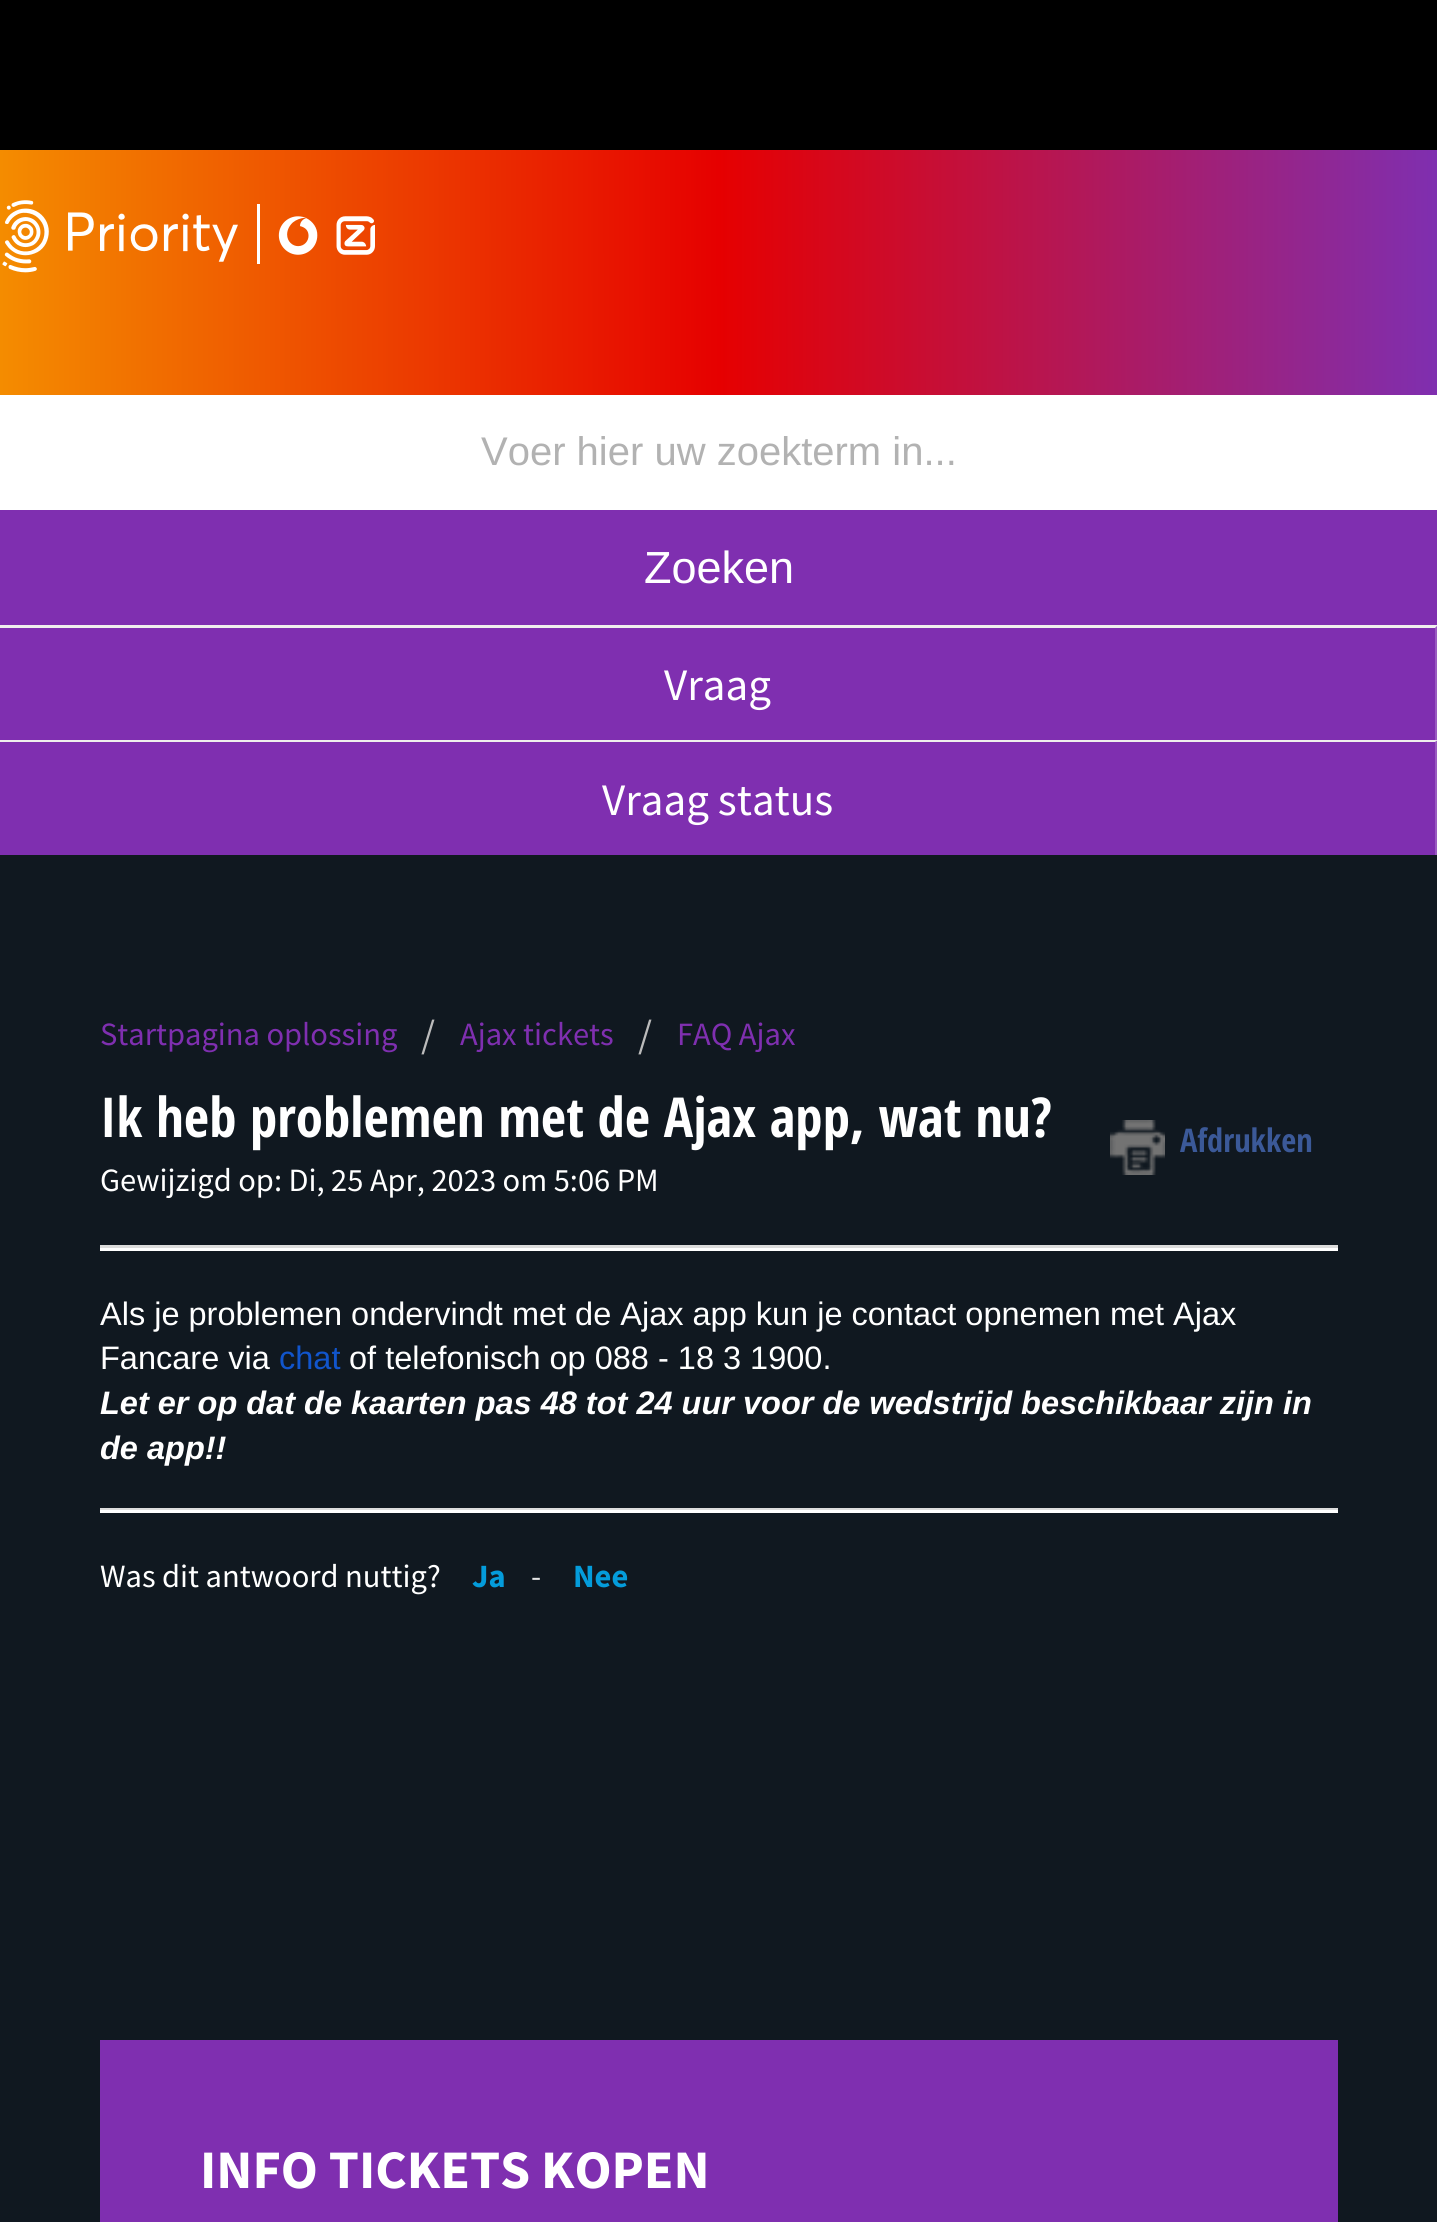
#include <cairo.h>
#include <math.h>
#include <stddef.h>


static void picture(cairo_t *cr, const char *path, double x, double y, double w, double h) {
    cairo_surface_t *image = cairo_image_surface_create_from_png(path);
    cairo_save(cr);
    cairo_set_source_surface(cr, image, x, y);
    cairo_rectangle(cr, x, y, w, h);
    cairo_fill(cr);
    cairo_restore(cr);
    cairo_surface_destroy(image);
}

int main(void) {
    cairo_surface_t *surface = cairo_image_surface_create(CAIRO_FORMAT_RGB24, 1437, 2222);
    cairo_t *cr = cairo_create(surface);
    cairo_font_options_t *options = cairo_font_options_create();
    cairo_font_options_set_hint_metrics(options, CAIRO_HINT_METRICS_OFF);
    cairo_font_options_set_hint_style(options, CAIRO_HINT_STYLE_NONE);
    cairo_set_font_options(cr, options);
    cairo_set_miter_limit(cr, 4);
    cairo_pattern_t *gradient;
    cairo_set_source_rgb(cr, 0.063, 0.094, 0.125);
    cairo_paint(cr);
    gradient = cairo_pattern_create_linear(0, 198, 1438, 197);
    cairo_pattern_add_color_stop_rgba(gradient, 0, 0.957, 0.549, 0, 1);
    cairo_pattern_add_color_stop_rgba(gradient, 0.5, 0.902, 0, 0, 1);
    cairo_pattern_add_color_stop_rgba(gradient, 1, 0.498, 0.184, 0.69, 1);
    cairo_set_source(cr, gradient);
    cairo_pattern_destroy(gradient);
    cairo_rectangle(cr, 0, 150, 1437, 245);
    cairo_fill(cr);
    cairo_set_source_rgb(cr, 0, 0, 0);
    cairo_rectangle(cr, 0, 0, 1437, 150);
    cairo_fill(cr);
    picture(cr, "img1.png", 2, 200, 373, 73);
    cairo_set_source_rgb(cr, 1, 1, 1);
    cairo_rectangle(cr, 0, 395, 1437, 115);
    cairo_fill(cr);
    cairo_select_font_face(cr, "Liberation Sans", CAIRO_FONT_SLANT_NORMAL, CAIRO_FONT_WEIGHT_NORMAL);
    cairo_set_font_size(cr, 40);
    cairo_set_source_rgb(cr, 0.698, 0.698, 0.698);
    cairo_move_to(cr, 481, 465);
    cairo_show_text(cr, "Voer hier uw zoekterm in...");
    cairo_set_source_rgb(cr, 0.498, 0.184, 0.69);
    cairo_rectangle(cr, 0, 510, 1437, 115);
    cairo_fill(cr);
    cairo_set_font_size(cr, 45);
    cairo_set_source_rgb(cr, 1, 1, 1);
    cairo_move_to(cr, 644, 583);
    cairo_show_text(cr, "Zoeken");
    cairo_set_source_rgb(cr, 0.498, 0.184, 0.69);
    cairo_rectangle(cr, 0, 626, 1437, 229);
    cairo_fill(cr);
    cairo_set_source_rgb(cr, 0.937, 0.937, 0.929);
    cairo_new_path(cr);
    cairo_move_to(cr, 0, 625);
    cairo_line_to(cr, 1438, 625);
    cairo_line_to(cr, 1435, 628);
    cairo_line_to(cr, 0, 628);
    cairo_close_path(cr);
    cairo_fill(cr);
    cairo_set_source_rgba(cr, 1, 1, 1, 0.2);
    cairo_new_path(cr);
    cairo_move_to(cr, 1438, 625);
    cairo_line_to(cr, 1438, 740);
    cairo_line_to(cr, 1435, 740);
    cairo_line_to(cr, 1435, 628);
    cairo_close_path(cr);
    cairo_fill(cr);
    cairo_select_font_face(cr, "Source Sans Pro", CAIRO_FONT_SLANT_NORMAL, CAIRO_FONT_WEIGHT_NORMAL);
    cairo_set_source_rgb(cr, 1, 1, 1);
    cairo_move_to(cr, 664, 700);
    cairo_show_text(cr, "Vraag");
    cairo_set_source_rgb(cr, 0.937, 0.937, 0.929);
    cairo_new_path(cr);
    cairo_move_to(cr, 0, 740);
    cairo_line_to(cr, 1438, 740);
    cairo_line_to(cr, 1435, 742);
    cairo_line_to(cr, 0, 742);
    cairo_close_path(cr);
    cairo_fill(cr);
    cairo_set_source_rgba(cr, 1, 1, 1, 0.2);
    cairo_new_path(cr);
    cairo_move_to(cr, 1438, 740);
    cairo_line_to(cr, 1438, 855);
    cairo_line_to(cr, 1435, 855);
    cairo_line_to(cr, 1435, 742);
    cairo_close_path(cr);
    cairo_fill(cr);
    cairo_set_source_rgb(cr, 1, 1, 1);
    cairo_move_to(cr, 602, 815);
    cairo_show_text(cr, "Vraag status");
    cairo_set_font_size(cr, 32.5);
    cairo_set_source_rgb(cr, 0.498, 0.184, 0.69);
    cairo_move_to(cr, 100, 1045);
    cairo_show_text(cr, "Startpagina oplossing");
    cairo_set_font_size(cr, 40);
    cairo_set_source_rgb(cr, 0.733, 0.733, 0.733);
    cairo_move_to(cr, 421, 1048);
    cairo_show_text(cr, "/");
    cairo_set_font_size(cr, 32.5);
    cairo_set_source_rgb(cr, 0.498, 0.184, 0.69);
    cairo_move_to(cr, 460, 1045);
    cairo_show_text(cr, "Ajax tickets");
    cairo_set_font_size(cr, 40);
    cairo_set_source_rgb(cr, 0.733, 0.733, 0.733);
    cairo_move_to(cr, 638, 1048);
    cairo_show_text(cr, "/");
    cairo_set_font_size(cr, 32.5);
    cairo_set_source_rgb(cr, 0.498, 0.184, 0.69);
    cairo_move_to(cr, 677, 1045);
    cairo_show_text(cr, "FAQ Ajax");
    cairo_select_font_face(cr, "Open Sans Condensed", CAIRO_FONT_SLANT_NORMAL, CAIRO_FONT_WEIGHT_BOLD);
    cairo_set_font_size(cr, 55);
    cairo_set_source_rgb(cr, 1, 1, 1);
    cairo_move_to(cr, 100, 1137);
    cairo_show_text(cr, "Ik heb problemen met de Ajax app, wat nu?");
    picture(cr, "img2.png", 1110, 1120, 55, 55);
    cairo_set_font_size(cr, 32.5);
    cairo_set_source_rgb(cr, 0.231, 0.349, 0.596);
    cairo_move_to(cr, 1180, 1152);
    cairo_show_text(cr, "Afdrukken");
    cairo_select_font_face(cr, "Source Sans Pro", CAIRO_FONT_SLANT_NORMAL, CAIRO_FONT_WEIGHT_NORMAL);
    cairo_set_source_rgb(cr, 1, 1, 1);
    cairo_move_to(cr, 100, 1191);
    cairo_show_text(cr, "Gewijzigd op: Di, 25 Apr, 2023 om 5:06 PM");
    cairo_set_source_rgb(cr, 0.863, 0.863, 0.863);
    cairo_rectangle(cr, 100, 1245, 1238, 3);
    cairo_fill(cr);
    cairo_set_source_rgb(cr, 1, 1, 1);
    cairo_rectangle(cr, 100, 1248, 1238, 3);
    cairo_fill(cr);
    cairo_select_font_face(cr, "Liberation Sans", CAIRO_FONT_SLANT_NORMAL, CAIRO_FONT_WEIGHT_NORMAL);
    cairo_move_to(cr, 100, 1325);
    cairo_show_text(cr, "Als je problemen ondervindt met de Ajax app kun je contact opnemen met Ajax");
    cairo_move_to(cr, 100, 1369);
    cairo_show_text(cr, "Fancare via");
    cairo_set_source_rgb(cr, 0.067, 0.333, 0.8);
    cairo_move_to(cr, 279, 1369);
    cairo_show_text(cr, "chat");
    cairo_set_source_rgb(cr, 1, 1, 1);
    cairo_move_to(cr, 349, 1369);
    cairo_show_text(cr, "of telefonisch op 088 - 18 3 1900.");
    cairo_select_font_face(cr, "Liberation Sans", CAIRO_FONT_SLANT_ITALIC, CAIRO_FONT_WEIGHT_BOLD);
    cairo_move_to(cr, 100, 1414);
    cairo_show_text(cr, "Let er op dat de kaarten pas 48 tot 24 uur voor de wedstrijd beschikbaar zijn in");
    cairo_move_to(cr, 100, 1459);
    cairo_show_text(cr, "de app!!");
    cairo_set_source_rgb(cr, 0.863, 0.863, 0.863);
    cairo_rectangle(cr, 100, 1508, 1238, 2);
    cairo_fill(cr);
    cairo_set_source_rgb(cr, 1, 1, 1);
    cairo_rectangle(cr, 100, 1510, 1238, 3);
    cairo_fill(cr);
    cairo_select_font_face(cr, "Source Sans Pro", CAIRO_FONT_SLANT_NORMAL, CAIRO_FONT_WEIGHT_NORMAL);
    cairo_move_to(cr, 100, 1587);
    cairo_show_text(cr, "Was dit antwoord nuttig?");
    cairo_select_font_face(cr, "Source Sans Pro", CAIRO_FONT_SLANT_NORMAL, CAIRO_FONT_WEIGHT_BOLD);
    cairo_set_source_rgb(cr, 0.016, 0.612, 0.859);
    cairo_move_to(cr, 472, 1587);
    cairo_show_text(cr, "Ja");
    cairo_select_font_face(cr, "Source Sans Pro", CAIRO_FONT_SLANT_NORMAL, CAIRO_FONT_WEIGHT_NORMAL);
    cairo_set_source_rgb(cr, 0.898, 0.898, 0.898);
    cairo_move_to(cr, 531, 1587);
    cairo_show_text(cr, "-");
    cairo_select_font_face(cr, "Source Sans Pro", CAIRO_FONT_SLANT_NORMAL, CAIRO_FONT_WEIGHT_BOLD);
    cairo_set_source_rgb(cr, 0.016, 0.612, 0.859);
    cairo_move_to(cr, 573, 1587);
    cairo_show_text(cr, "Nee");
    cairo_set_source_rgb(cr, 0.498, 0.184, 0.69);
    cairo_rectangle(cr, 100, 2040, 1238, 182);
    cairo_fill(cr);
    cairo_set_font_size(cr, 54.25);
    cairo_set_source_rgb(cr, 1, 1, 1);
    cairo_move_to(cr, 200, 2188);
    cairo_show_text(cr, "INFO TICKETS KOPEN");
    cairo_surface_write_to_png(surface, "page.png");
    cairo_font_options_destroy(options);
    cairo_destroy(cr);
    cairo_surface_destroy(surface);
    return 0;
}
